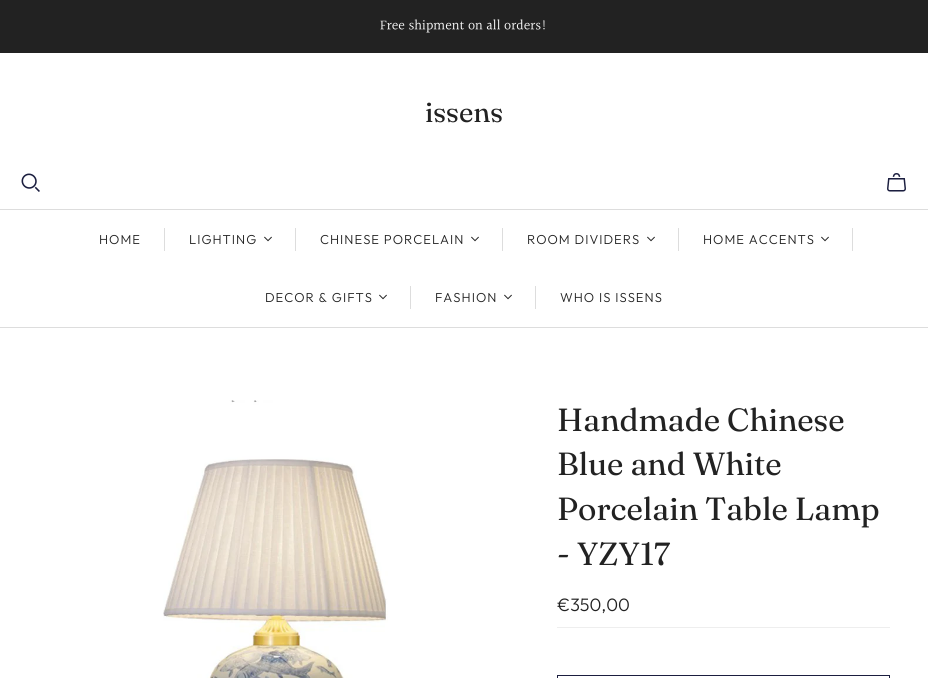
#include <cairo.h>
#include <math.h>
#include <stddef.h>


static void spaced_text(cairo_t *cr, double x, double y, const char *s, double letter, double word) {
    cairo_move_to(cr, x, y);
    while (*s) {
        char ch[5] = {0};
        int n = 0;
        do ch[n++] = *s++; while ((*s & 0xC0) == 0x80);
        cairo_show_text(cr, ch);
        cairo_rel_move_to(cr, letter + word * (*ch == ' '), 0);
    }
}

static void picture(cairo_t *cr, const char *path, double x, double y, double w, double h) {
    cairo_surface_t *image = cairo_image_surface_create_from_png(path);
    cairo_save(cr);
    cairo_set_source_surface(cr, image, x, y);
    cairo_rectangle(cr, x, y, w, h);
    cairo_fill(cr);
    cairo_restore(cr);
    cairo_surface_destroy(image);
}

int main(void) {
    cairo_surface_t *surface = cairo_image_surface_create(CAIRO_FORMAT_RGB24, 928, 678);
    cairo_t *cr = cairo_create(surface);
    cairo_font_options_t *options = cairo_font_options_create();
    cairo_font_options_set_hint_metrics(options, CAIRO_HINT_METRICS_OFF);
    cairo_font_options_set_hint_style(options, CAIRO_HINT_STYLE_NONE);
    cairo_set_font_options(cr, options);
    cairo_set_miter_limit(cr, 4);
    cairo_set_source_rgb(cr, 1, 1, 1);
    cairo_paint(cr);
    cairo_set_source_rgb(cr, 0.133, 0.133, 0.133);
    cairo_rectangle(cr, 0, 0, 928, 53);
    cairo_fill(cr);
    cairo_select_font_face(cr, "Halant", CAIRO_FONT_SLANT_NORMAL, CAIRO_FONT_WEIGHT_NORMAL);
    cairo_set_font_size(cr, 14);
    cairo_set_source_rgb(cr, 1, 1, 1);
    cairo_move_to(cr, 380, 30);
    cairo_show_text(cr, "Free shipment on all orders!");
    cairo_select_font_face(cr, "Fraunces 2", CAIRO_FONT_SLANT_NORMAL, CAIRO_FONT_WEIGHT_NORMAL);
    cairo_set_font_size(cr, 28);
    cairo_set_source_rgb(cr, 0.133, 0.133, 0.133);
    cairo_move_to(cr, 425, 122);
    cairo_show_text(cr, "issens");
    picture(cr, "img1.png", 21, 173, 19, 19);
    picture(cr, "img2.png", 887, 173, 19, 19);
    cairo_set_source_rgb(cr, 0.867, 0.867, 0.867);
    cairo_rectangle(cr, 0, 209, 928, 1);
    cairo_fill(cr);
    cairo_rectangle(cr, 0, 327, 928, 1);
    cairo_fill(cr);
    cairo_select_font_face(cr, "Outfit Light", CAIRO_FONT_SLANT_NORMAL, CAIRO_FONT_WEIGHT_NORMAL);
    cairo_set_font_size(cr, 13);
    cairo_set_source_rgb(cr, 0.133, 0.133, 0.133);
    spaced_text(cr, 99, 244, "HOME", 1, 0);
    cairo_set_source_rgb(cr, 0.867, 0.867, 0.867);
    cairo_rectangle(cr, 164, 228, 1, 23);
    cairo_fill(cr);
    cairo_set_source_rgb(cr, 0.133, 0.133, 0.133);
    spaced_text(cr, 189, 244, "LIGHTING", 1, 0);
    picture(cr, "img3.png", 264, 236, 8, 6);
    cairo_set_source_rgb(cr, 0.867, 0.867, 0.867);
    cairo_rectangle(cr, 295, 228, 1, 23);
    cairo_fill(cr);
    cairo_set_source_rgb(cr, 0.133, 0.133, 0.133);
    spaced_text(cr, 320, 244, "CHINESE PORCELAIN", 1, 0);
    picture(cr, "img3.png", 471, 236, 8, 6);
    cairo_set_source_rgb(cr, 0.867, 0.867, 0.867);
    cairo_rectangle(cr, 502, 228, 1, 23);
    cairo_fill(cr);
    cairo_set_source_rgb(cr, 0.133, 0.133, 0.133);
    spaced_text(cr, 527, 244, "ROOM DIVIDERS", 1, 0);
    picture(cr, "img3.png", 647, 236, 8, 6);
    cairo_set_source_rgb(cr, 0.867, 0.867, 0.867);
    cairo_rectangle(cr, 678, 228, 1, 23);
    cairo_fill(cr);
    cairo_set_source_rgb(cr, 0.133, 0.133, 0.133);
    spaced_text(cr, 703, 244, "HOME ACCENTS", 1, 0);
    picture(cr, "img3.png", 821, 236, 8, 6);
    cairo_set_source_rgb(cr, 0.867, 0.867, 0.867);
    cairo_rectangle(cr, 852, 228, 1, 23);
    cairo_fill(cr);
    cairo_set_source_rgb(cr, 0.133, 0.133, 0.133);
    spaced_text(cr, 265, 302, "DECOR & GIFTS", 1, 0);
    picture(cr, "img3.png", 379, 294, 8, 6);
    cairo_set_source_rgb(cr, 0.867, 0.867, 0.867);
    cairo_rectangle(cr, 410, 286, 1, 23);
    cairo_fill(cr);
    cairo_set_source_rgb(cr, 0.133, 0.133, 0.133);
    spaced_text(cr, 435, 302, "FASHION", 1, 0);
    picture(cr, "img3.png", 504, 294, 8, 6);
    cairo_set_source_rgb(cr, 0.867, 0.867, 0.867);
    cairo_rectangle(cr, 535, 286, 1, 23);
    cairo_fill(cr);
    cairo_set_source_rgb(cr, 0.133, 0.133, 0.133);
    spaced_text(cr, 560, 302, "WHO IS ISSENS", 1, 0);
    picture(cr, "img4.png", 163, 400, 225, 278);
    cairo_select_font_face(cr, "Fraunces", CAIRO_FONT_SLANT_NORMAL, CAIRO_FONT_WEIGHT_NORMAL);
    cairo_set_font_size(cr, 32);
    cairo_move_to(cr, 557, 431);
    cairo_show_text(cr, "Handmade Chinese");
    cairo_move_to(cr, 557, 475);
    cairo_show_text(cr, "Blue and White");
    cairo_move_to(cr, 557, 520);
    cairo_show_text(cr, "Porcelain Table Lamp");
    cairo_move_to(cr, 557, 565);
    cairo_show_text(cr, "- YZY17");
    cairo_set_source_rgb(cr, 0.933, 0.933, 0.933);
    cairo_rectangle(cr, 557, 627, 333, 1);
    cairo_fill(cr);
    cairo_select_font_face(cr, "Outfit Light", CAIRO_FONT_SLANT_NORMAL, CAIRO_FONT_WEIGHT_NORMAL);
    cairo_set_font_size(cr, 18);
    cairo_set_source_rgb(cr, 0.133, 0.133, 0.133);
    cairo_move_to(cr, 557, 611);
    cairo_show_text(cr, "€350,00");
    cairo_rectangle(cr, 557.5, 675.5, 332, 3);
    cairo_set_source_rgb(cr, 0.106, 0.118, 0.247);
    cairo_set_line_width(cr, 1);
    cairo_stroke(cr);
    cairo_surface_write_to_png(surface, "page.png");
    cairo_font_options_destroy(options);
    cairo_destroy(cr);
    cairo_surface_destroy(surface);
    return 0;
}
